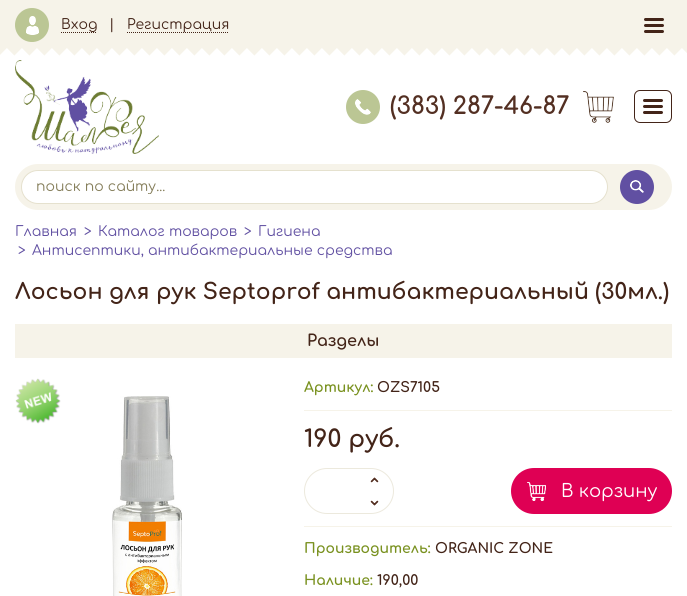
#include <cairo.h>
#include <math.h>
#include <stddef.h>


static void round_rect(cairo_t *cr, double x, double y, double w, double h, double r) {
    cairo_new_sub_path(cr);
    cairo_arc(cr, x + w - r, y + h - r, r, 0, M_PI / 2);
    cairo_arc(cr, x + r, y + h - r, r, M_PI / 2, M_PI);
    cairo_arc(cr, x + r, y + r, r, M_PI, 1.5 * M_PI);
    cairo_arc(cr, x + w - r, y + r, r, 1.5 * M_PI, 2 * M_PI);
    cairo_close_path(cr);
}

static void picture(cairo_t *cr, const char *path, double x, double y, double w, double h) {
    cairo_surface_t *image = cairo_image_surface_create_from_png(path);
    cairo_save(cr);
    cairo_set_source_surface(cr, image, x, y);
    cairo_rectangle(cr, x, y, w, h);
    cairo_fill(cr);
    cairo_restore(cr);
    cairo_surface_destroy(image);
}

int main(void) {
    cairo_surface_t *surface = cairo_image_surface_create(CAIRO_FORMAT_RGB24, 687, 596);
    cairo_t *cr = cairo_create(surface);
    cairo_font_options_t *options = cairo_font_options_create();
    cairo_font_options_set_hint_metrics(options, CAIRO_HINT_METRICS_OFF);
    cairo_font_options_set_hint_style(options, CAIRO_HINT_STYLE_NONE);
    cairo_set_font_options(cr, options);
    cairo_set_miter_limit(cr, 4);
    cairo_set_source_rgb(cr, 1, 1, 1);
    cairo_paint(cr);
    cairo_set_source_rgb(cr, 0.961, 0.953, 0.914);
    cairo_rectangle(cr, 0, 0, 687, 56);
    cairo_fill(cr);
    cairo_set_source_rgb(cr, 0.733, 0.776, 0.58);
    cairo_arc(cr, 32, 25, 17, 0, 2 * M_PI);
    cairo_fill(cr);
    picture(cr, "img1.png", 26, 16, 13, 19);
    cairo_select_font_face(cr, "Comfortaa", CAIRO_FONT_SLANT_NORMAL, CAIRO_FONT_WEIGHT_NORMAL);
    cairo_set_font_size(cr, 14);
    cairo_set_source_rgb(cr, 0.263, 0.141, 0.094);
    cairo_move_to(cr, 61, 29);
    cairo_show_text(cr, "Вход");
    cairo_new_path(cr);
    cairo_move_to(cr, 61, 32.5);
    cairo_line_to(cr, 97, 32.5);
    cairo_set_line_width(cr, 1);
    cairo_set_dash(cr, (double[]){1, 1}, 2, 0);
    cairo_stroke(cr);
    cairo_move_to(cr, 109, 29);
    cairo_show_text(cr, "|");
    cairo_new_path(cr);
    cairo_move_to(cr, 127, 32.5);
    cairo_line_to(cr, 229, 32.5);
    cairo_stroke(cr);
    cairo_move_to(cr, 127, 29);
    cairo_show_text(cr, "Регистрация");
    round_rect(cr, 644, 18, 20, 3, 1.5);
    cairo_fill(cr);
    round_rect(cr, 644, 24, 20, 3, 1.5);
    cairo_fill(cr);
    round_rect(cr, 644, 30, 20, 3, 1.5);
    cairo_fill(cr);
    picture(cr, "img2.png", 0, 48, 687, 8);
    picture(cr, "img3.png", 15, 60, 144, 94);
    cairo_set_source_rgb(cr, 0.733, 0.776, 0.58);
    cairo_arc(cr, 363, 107, 17, 0, 2 * M_PI);
    cairo_fill(cr);
    picture(cr, "img4.png", 355, 99, 16, 16);
    cairo_select_font_face(cr, "Comfortaa", CAIRO_FONT_SLANT_NORMAL, CAIRO_FONT_WEIGHT_BOLD);
    cairo_set_font_size(cr, 24);
    cairo_set_source_rgb(cr, 0.325, 0.184, 0.133);
    cairo_move_to(cr, 390, 114);
    cairo_show_text(cr, "(383) 287-46-87");
    picture(cr, "img5.png", 583, 91, 31, 32);
    round_rect(cr, 634.5, 90.5, 37, 32, 5.5);
    cairo_set_source_rgb(cr, 0.263, 0.141, 0.094);
    cairo_set_dash(cr, NULL, 0, 0);
    cairo_stroke(cr);
    round_rect(cr, 643, 99, 20, 3, 1.5);
    cairo_fill(cr);
    round_rect(cr, 643, 105, 20, 3, 1.5);
    cairo_fill(cr);
    round_rect(cr, 643, 111, 20, 3, 1.5);
    cairo_fill(cr);
    cairo_set_source_rgb(cr, 0.961, 0.953, 0.914);
    round_rect(cr, 15, 164, 657, 46, 23);
    cairo_fill(cr);
    cairo_set_source_rgb(cr, 1, 1, 1);
    round_rect(cr, 21.5, 170.5, 586, 33, 16.5);
    cairo_fill_preserve(cr);
    cairo_set_source_rgb(cr, 0.898, 0.882, 0.808);
    cairo_stroke(cr);
    cairo_save(cr);
    cairo_rectangle(cr, 36, 179, 557, 15);
    cairo_clip(cr);
    cairo_select_font_face(cr, "Comfortaa", CAIRO_FONT_SLANT_NORMAL, CAIRO_FONT_WEIGHT_NORMAL);
    cairo_set_font_size(cr, 14);
    cairo_set_source_rgb(cr, 0.518, 0.49, 0.349);
    cairo_move_to(cr, 36, 191);
    cairo_show_text(cr, "поиск по сайту...");
    cairo_restore(cr);
    cairo_set_source_rgb(cr, 0.38, 0.314, 0.635);
    cairo_new_path(cr);
    cairo_arc(cr, 637, 187, 17, 0, 2 * M_PI);
    cairo_fill(cr);
    picture(cr, "img6.png", 630, 180, 14, 13);
    cairo_select_font_face(cr, "Comfortaa", CAIRO_FONT_SLANT_NORMAL, CAIRO_FONT_WEIGHT_NORMAL);
    cairo_set_font_size(cr, 14);
    cairo_move_to(cr, 15, 236);
    cairo_show_text(cr, "Главная");
    cairo_move_to(cr, 84, 236);
    cairo_show_text(cr, ">");
    cairo_move_to(cr, 98, 236);
    cairo_show_text(cr, "Каталог товаров");
    cairo_move_to(cr, 244, 236);
    cairo_show_text(cr, ">");
    cairo_move_to(cr, 258, 236);
    cairo_show_text(cr, "Гигиена");
    cairo_move_to(cr, 18, 255);
    cairo_show_text(cr, ">");
    cairo_move_to(cr, 32, 255);
    cairo_show_text(cr, "Антисептики, антибактериальные средства");
    cairo_select_font_face(cr, "Comfortaa", CAIRO_FONT_SLANT_NORMAL, CAIRO_FONT_WEIGHT_BOLD);
    cairo_set_font_size(cr, 22);
    cairo_set_source_rgb(cr, 0.263, 0.141, 0.094);
    cairo_move_to(cr, 15, 299);
    cairo_show_text(cr, "Лосьон для рук Septoprof антибактериальный (30мл.)");
    cairo_set_source_rgb(cr, 0.961, 0.953, 0.914);
    cairo_rectangle(cr, 15, 324, 657, 34);
    cairo_fill(cr);
    cairo_set_font_size(cr, 16);
    cairo_set_source_rgb(cr, 0.263, 0.141, 0.094);
    cairo_move_to(cr, 307, 346);
    cairo_show_text(cr, "Разделы");
    picture(cr, "img7.png", 15, 378, 46, 46);
    picture(cr, "img8.png", 112, 396, 70, 200);
    cairo_set_font_size(cr, 14);
    cairo_set_source_rgb(cr, 0.475, 0.569, 0.122);
    cairo_move_to(cr, 304, 392);
    cairo_show_text(cr, "Артикул:");
    cairo_set_source_rgb(cr, 0.263, 0.141, 0.094);
    cairo_move_to(cr, 377, 392);
    cairo_show_text(cr, "OZS7105");
    cairo_set_source_rgb(cr, 0.961, 0.953, 0.914);
    cairo_rectangle(cr, 304, 410, 368, 1);
    cairo_fill(cr);
    cairo_rectangle(cr, 304, 526, 368, 1);
    cairo_fill(cr);
    cairo_set_font_size(cr, 24);
    cairo_set_source_rgb(cr, 0.263, 0.141, 0.094);
    cairo_move_to(cr, 304, 447);
    cairo_show_text(cr, "190 руб.");
    round_rect(cr, 304.5, 468.5, 89, 45, 22.5);
    cairo_set_source_rgb(cr, 0.925, 0.914, 0.867);
    cairo_stroke(cr);
    picture(cr, "img9.png", 370, 477, 9, 6);
    picture(cr, "img10.png", 370, 500, 9, 6);
    cairo_set_source_rgb(cr, 0.875, 0, 0.329);
    round_rect(cr, 511, 468, 161, 46, 23);
    cairo_fill(cr);
    picture(cr, "img11.png", 527, 482, 19, 19);
    cairo_select_font_face(cr, "Comfortaa", CAIRO_FONT_SLANT_NORMAL, CAIRO_FONT_WEIGHT_NORMAL);
    cairo_set_font_size(cr, 18);
    cairo_set_source_rgb(cr, 1, 1, 1);
    cairo_move_to(cr, 561, 497);
    cairo_show_text(cr, "В корзину");
    cairo_select_font_face(cr, "Comfortaa", CAIRO_FONT_SLANT_NORMAL, CAIRO_FONT_WEIGHT_BOLD);
    cairo_set_font_size(cr, 14);
    cairo_set_source_rgb(cr, 0.475, 0.569, 0.122);
    cairo_move_to(cr, 304, 553);
    cairo_show_text(cr, "Производитель:");
    cairo_set_source_rgb(cr, 0.263, 0.141, 0.094);
    cairo_move_to(cr, 435, 553);
    cairo_show_text(cr, "ORGANIC ZONE");
    cairo_set_source_rgb(cr, 0.475, 0.569, 0.122);
    cairo_move_to(cr, 304, 585);
    cairo_show_text(cr, "Наличие:");
    cairo_set_source_rgb(cr, 0.263, 0.141, 0.094);
    cairo_move_to(cr, 377, 585);
    cairo_show_text(cr, "190,00");
    cairo_surface_write_to_png(surface, "page.png");
    cairo_font_options_destroy(options);
    cairo_destroy(cr);
    cairo_surface_destroy(surface);
    return 0;
}
